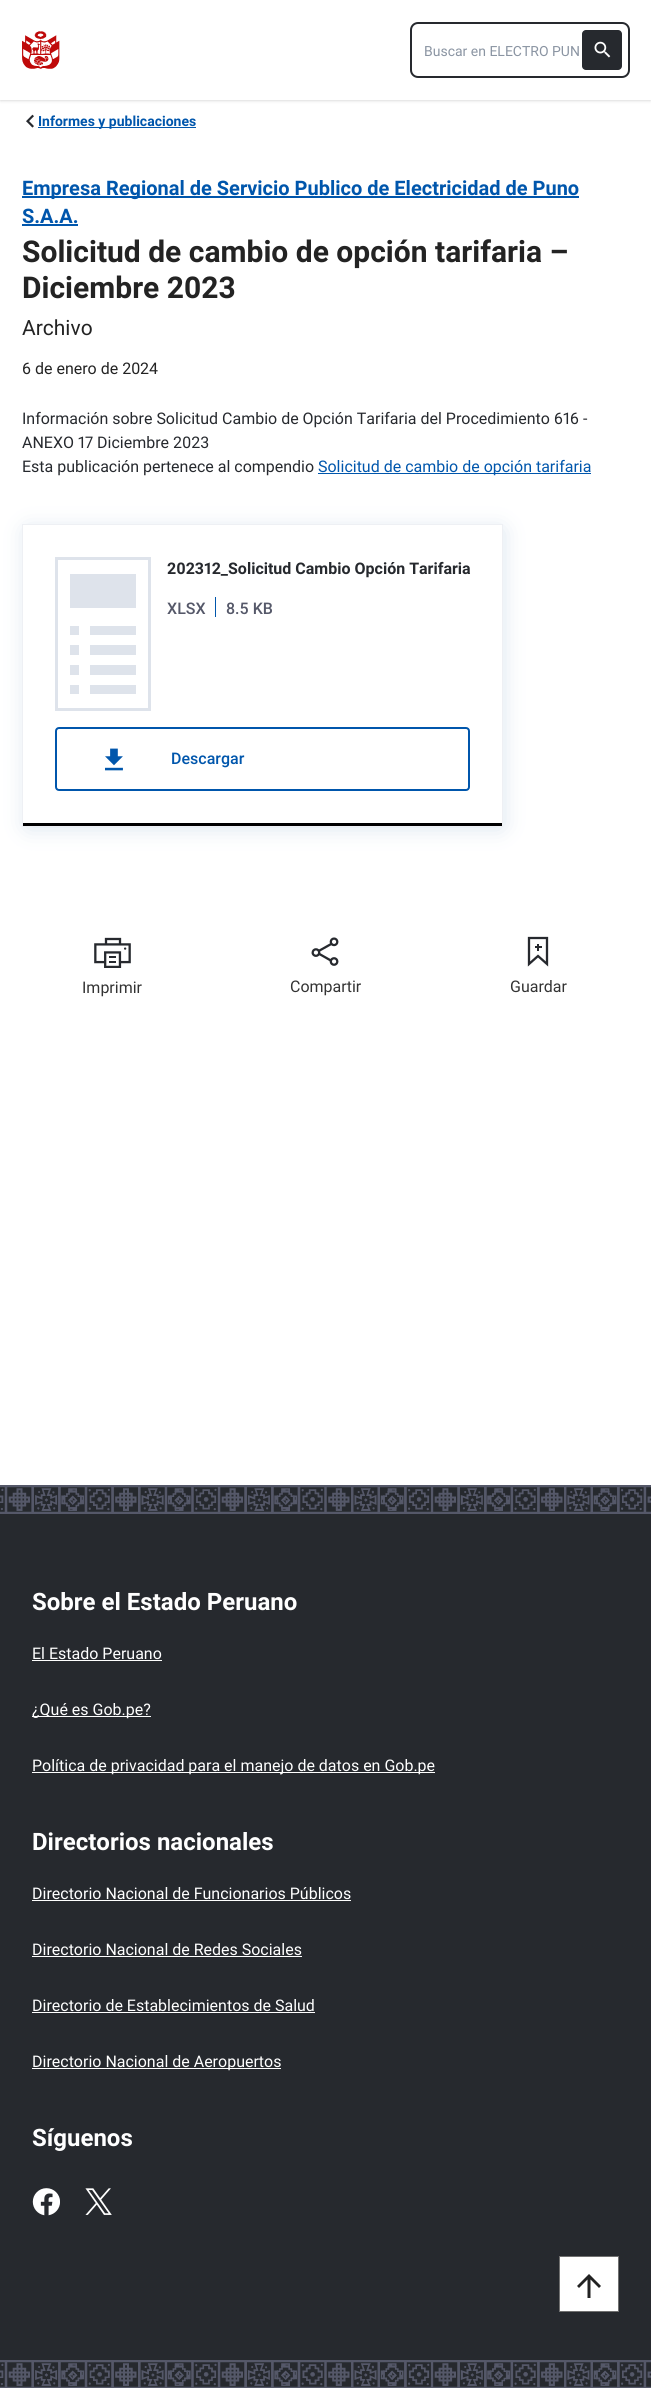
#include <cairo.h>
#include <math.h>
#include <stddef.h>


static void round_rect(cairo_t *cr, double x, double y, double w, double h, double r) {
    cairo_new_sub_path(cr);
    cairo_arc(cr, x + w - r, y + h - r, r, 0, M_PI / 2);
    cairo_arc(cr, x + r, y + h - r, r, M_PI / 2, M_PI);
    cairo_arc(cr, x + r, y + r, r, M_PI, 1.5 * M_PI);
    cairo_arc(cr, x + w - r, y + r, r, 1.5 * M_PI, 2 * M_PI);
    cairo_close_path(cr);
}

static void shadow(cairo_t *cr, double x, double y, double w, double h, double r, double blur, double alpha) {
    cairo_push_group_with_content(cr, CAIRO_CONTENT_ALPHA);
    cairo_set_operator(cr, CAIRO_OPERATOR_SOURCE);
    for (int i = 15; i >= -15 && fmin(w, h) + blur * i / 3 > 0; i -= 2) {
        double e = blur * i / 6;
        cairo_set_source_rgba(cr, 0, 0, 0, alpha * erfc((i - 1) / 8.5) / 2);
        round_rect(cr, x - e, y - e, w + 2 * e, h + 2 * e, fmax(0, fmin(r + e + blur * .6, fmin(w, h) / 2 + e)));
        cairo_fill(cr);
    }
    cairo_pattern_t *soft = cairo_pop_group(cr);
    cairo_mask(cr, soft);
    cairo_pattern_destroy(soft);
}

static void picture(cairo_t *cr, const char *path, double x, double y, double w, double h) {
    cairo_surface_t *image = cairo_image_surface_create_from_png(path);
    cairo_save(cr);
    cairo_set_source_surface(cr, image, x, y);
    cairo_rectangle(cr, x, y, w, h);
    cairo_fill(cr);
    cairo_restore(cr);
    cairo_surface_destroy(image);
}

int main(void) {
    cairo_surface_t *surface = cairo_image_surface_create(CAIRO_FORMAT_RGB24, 651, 2388);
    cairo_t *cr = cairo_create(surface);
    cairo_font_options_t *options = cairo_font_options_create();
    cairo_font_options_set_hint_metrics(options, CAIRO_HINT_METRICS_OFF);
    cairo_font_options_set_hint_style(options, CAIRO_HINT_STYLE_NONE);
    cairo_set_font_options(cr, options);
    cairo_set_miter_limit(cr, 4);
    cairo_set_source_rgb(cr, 1, 1, 1);
    cairo_paint(cr);
    cairo_set_source_rgb(cr, 0, 0, 0);
    shadow(cr, 1, 2, 649, 98, 0, 1, 0.1);
    shadow(cr, 0, 1, 651, 100, 0, 1.5, 0.1);
    cairo_set_source_rgb(cr, 1, 1, 1);
    cairo_rectangle(cr, 0, 0, 651, 100);
    cairo_fill(cr);
    picture(cr, "img1.png", 22, 31, 38, 38);
    round_rect(cr, 411, 23, 218, 54, 7);
    cairo_set_source_rgb(cr, 0.149, 0.161, 0.18);
    cairo_stroke(cr);
    cairo_select_font_face(cr, "Roboto", CAIRO_FONT_SLANT_NORMAL, CAIRO_FONT_WEIGHT_NORMAL);
    cairo_set_font_size(cr, 14);
    cairo_set_source_rgb(cr, 0.541, 0.58, 0.635);
    cairo_move_to(cr, 424, 56);
    cairo_show_text(cr, "Buscar en ELECTRO PUN");
    cairo_set_source_rgb(cr, 0.149, 0.161, 0.18);
    round_rect(cr, 582, 30, 40, 40, 4);
    cairo_fill(cr);
    picture(cr, "img2.png", 594, 41, 17, 17);
    picture(cr, "img3.png", 26, 114, 8, 14);
    cairo_set_source_rgb(cr, 0, 0.337, 0.675);
    cairo_rectangle(cr, 38, 127, 158, 1);
    cairo_fill(cr);
    cairo_select_font_face(cr, "Roboto", CAIRO_FONT_SLANT_NORMAL, CAIRO_FONT_WEIGHT_BOLD);
    cairo_move_to(cr, 38, 126);
    cairo_show_text(cr, "Informes y publicaciones");
    cairo_rectangle(cr, 22, 196, 557, 2);
    cairo_fill(cr);
    cairo_set_font_size(cr, 20);
    cairo_move_to(cr, 22, 195);
    cairo_show_text(cr, "Empresa Regional de Servicio Publico de Electricidad de Puno");
    cairo_move_to(cr, 22, 223);
    cairo_show_text(cr, "S.A.A.");
    cairo_rectangle(cr, 22, 224, 56, 2);
    cairo_fill(cr);
    cairo_set_font_size(cr, 30);
    cairo_set_source_rgb(cr, 0.137, 0.137, 0.137);
    cairo_move_to(cr, 22, 262);
    cairo_show_text(cr, "Solicitud de cambio de opción tarifaria –");
    cairo_move_to(cr, 22, 298);
    cairo_show_text(cr, "Diciembre 2023");
    cairo_select_font_face(cr, "Roboto", CAIRO_FONT_SLANT_NORMAL, CAIRO_FONT_WEIGHT_NORMAL);
    cairo_set_font_size(cr, 21);
    cairo_move_to(cr, 22, 335);
    cairo_show_text(cr, "Archivo");
    cairo_set_font_size(cr, 16);
    cairo_move_to(cr, 22, 374);
    cairo_show_text(cr, "6 de enero de 2024");
    cairo_select_font_face(cr, "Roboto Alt", CAIRO_FONT_SLANT_NORMAL, CAIRO_FONT_WEIGHT_NORMAL);
    cairo_set_source_rgb(cr, 0.149, 0.161, 0.18);
    cairo_move_to(cr, 22, 424);
    cairo_show_text(cr, "Información sobre Solicitud Cambio de Opción Tarifaria del Procedimiento 616 -");
    cairo_move_to(cr, 22, 448);
    cairo_show_text(cr, "ANEXO 17 Diciembre 2023");
    cairo_select_font_face(cr, "Roboto", CAIRO_FONT_SLANT_NORMAL, CAIRO_FONT_WEIGHT_NORMAL);
    cairo_move_to(cr, 22, 472);
    cairo_show_text(cr, "Esta publicación pertenece al compendio");
    cairo_set_source_rgb(cr, 0, 0.337, 0.675);
    cairo_rectangle(cr, 318, 473, 273, 1);
    cairo_fill(cr);
    cairo_move_to(cr, 318, 472);
    cairo_show_text(cr, "Solicitud de cambio de opción tarifaria");
    cairo_save(cr);
    cairo_set_fill_rule(cr, CAIRO_FILL_RULE_EVEN_ODD);
    cairo_new_path(cr);
    cairo_move_to(cr, 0, 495);
    cairo_line_to(cr, 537, 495);
    cairo_line_to(cr, 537, 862);
    cairo_line_to(cr, 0, 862);
    cairo_close_path(cr);
    cairo_move_to(cr, 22, 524);
    cairo_line_to(cr, 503, 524);
    cairo_line_to(cr, 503, 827);
    cairo_line_to(cr, 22, 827);
    cairo_close_path(cr);
    cairo_clip(cr);
    cairo_set_source_rgb(cr, 0.827, 0.878, 0.925);
    shadow(cr, 28, 531, 473, 295, 0, 11.5, 1);
    cairo_restore(cr);
    cairo_rectangle(cr, 22.5, 524.5, 480, 302);
    cairo_set_source_rgb(cr, 0.933, 0.941, 0.957);
    cairo_set_line_width(cr, 1);
    cairo_stroke(cr);
    cairo_set_source_rgb(cr, 0, 0, 0);
    cairo_rectangle(cr, 23, 823, 479, 3);
    cairo_fill(cr);
    cairo_rectangle(cr, 56.5, 558.5, 93, 151);
    cairo_set_source_rgb(cr, 0.871, 0.89, 0.918);
    cairo_set_line_width(cr, 3);
    cairo_stroke(cr);
    cairo_rectangle(cr, 70, 574, 66, 34);
    cairo_fill(cr);
    cairo_rectangle(cr, 90, 626, 46, 9);
    cairo_fill(cr);
    cairo_rectangle(cr, 90, 665, 46, 10);
    cairo_fill(cr);
    cairo_rectangle(cr, 90, 645, 46, 10);
    cairo_fill(cr);
    cairo_rectangle(cr, 90, 685, 46, 9);
    cairo_fill(cr);
    cairo_rectangle(cr, 70, 626, 9, 9);
    cairo_fill(cr);
    cairo_rectangle(cr, 70, 665, 9, 10);
    cairo_fill(cr);
    cairo_rectangle(cr, 70, 645, 9, 10);
    cairo_fill(cr);
    cairo_rectangle(cr, 70, 685, 9, 9);
    cairo_fill(cr);
    cairo_select_font_face(cr, "Roboto Alt", CAIRO_FONT_SLANT_NORMAL, CAIRO_FONT_WEIGHT_BOLD);
    cairo_set_source_rgb(cr, 0.149, 0.161, 0.18);
    cairo_move_to(cr, 167, 574);
    cairo_show_text(cr, "202312_Solicitud Cambio Opción Tarifaria");
    cairo_select_font_face(cr, "Roboto Medium", CAIRO_FONT_SLANT_NORMAL, CAIRO_FONT_WEIGHT_NORMAL);
    cairo_set_source_rgb(cr, 0.333, 0.345, 0.412);
    cairo_move_to(cr, 167, 614);
    cairo_show_text(cr, "XLSX");
    cairo_set_source_rgb(cr, 0, 0.337, 0.675);
    cairo_rectangle(cr, 215, 597, 1, 20);
    cairo_fill(cr);
    cairo_set_source_rgb(cr, 0.333, 0.345, 0.412);
    cairo_move_to(cr, 226, 614);
    cairo_show_text(cr, "8.5 KB");
    round_rect(cr, 56, 728, 413, 62, 3);
    cairo_set_source_rgb(cr, 0, 0.337, 0.675);
    cairo_set_line_width(cr, 2);
    cairo_stroke(cr);
    picture(cr, "img4.png", 105, 748, 18, 23);
    cairo_move_to(cr, 171, 764);
    cairo_show_text(cr, "Descargar");
    picture(cr, "img5.png", 94, 937, 37, 31);
    cairo_select_font_face(cr, "Roboto", CAIRO_FONT_SLANT_NORMAL, CAIRO_FONT_WEIGHT_NORMAL);
    cairo_set_source_rgb(cr, 0.2, 0.2, 0.2);
    cairo_move_to(cr, 82, 993);
    cairo_show_text(cr, "Imprimir");
    picture(cr, "img6.png", 311, 937, 28, 29);
    cairo_move_to(cr, 290, 992);
    cairo_show_text(cr, "Compartir");
    cairo_new_path(cr);
    cairo_move_to(cr, 547, 964);
    cairo_line_to(cr, 538, 956);
    cairo_line_to(cr, 529, 964);
    cairo_line_to(cr, 529, 938);
    cairo_line_to(cr, 547, 938);
    cairo_close_path(cr);
    cairo_set_source_rgb(cr, 0.149, 0.161, 0.18);
    cairo_set_line_width(cr, 2.3);
    cairo_stroke(cr);
    cairo_rectangle(cr, 537, 944, 2, 7);
    cairo_fill(cr);
    cairo_rectangle(cr, 535, 946, 7, 2);
    cairo_fill(cr);
    cairo_set_source_rgb(cr, 0.2, 0.2, 0.2);
    cairo_move_to(cr, 510, 992);
    cairo_show_text(cr, "Guardar");
    cairo_set_source_rgb(cr, 0.149, 0.161, 0.18);
    cairo_rectangle(cr, 0, 1487, 651, 25);
    cairo_fill(cr);
    picture(cr, "img7.png", 0, 1485, 651, 29);
    cairo_rectangle(cr, 0, 1514, 651, 846);
    cairo_fill(cr);
    cairo_select_font_face(cr, "Roboto", CAIRO_FONT_SLANT_NORMAL, CAIRO_FONT_WEIGHT_BOLD);
    cairo_set_font_size(cr, 24);
    cairo_set_source_rgb(cr, 1, 1, 1);
    cairo_move_to(cr, 32, 1610);
    cairo_show_text(cr, "Sobre el Estado Peruano");
    cairo_select_font_face(cr, "Roboto", CAIRO_FONT_SLANT_NORMAL, CAIRO_FONT_WEIGHT_NORMAL);
    cairo_set_font_size(cr, 16);
    cairo_move_to(cr, 32, 1659);
    cairo_show_text(cr, "El Estado Peruano");
    cairo_rectangle(cr, 32, 1660, 130, 1);
    cairo_fill(cr);
    cairo_rectangle(cr, 32, 1716, 119, 1);
    cairo_fill(cr);
    cairo_move_to(cr, 32, 1715);
    cairo_show_text(cr, "¿Qué es Gob.pe?");
    cairo_rectangle(cr, 32, 1772, 403, 1);
    cairo_fill(cr);
    cairo_move_to(cr, 32, 1771);
    cairo_show_text(cr, "Política de privacidad para el manejo de datos en Gob.pe");
    cairo_select_font_face(cr, "Roboto", CAIRO_FONT_SLANT_NORMAL, CAIRO_FONT_WEIGHT_BOLD);
    cairo_set_font_size(cr, 24);
    cairo_move_to(cr, 32, 1850);
    cairo_show_text(cr, "Directorios nacionales");
    cairo_select_font_face(cr, "Roboto", CAIRO_FONT_SLANT_NORMAL, CAIRO_FONT_WEIGHT_NORMAL);
    cairo_set_font_size(cr, 16);
    cairo_move_to(cr, 32, 1899);
    cairo_show_text(cr, "Directorio Nacional de Funcionarios Públicos");
    cairo_rectangle(cr, 32, 1900, 319, 1);
    cairo_fill(cr);
    cairo_move_to(cr, 32, 1955);
    cairo_show_text(cr, "Directorio Nacional de Redes Sociales");
    cairo_rectangle(cr, 32, 1956, 270, 1);
    cairo_fill(cr);
    cairo_move_to(cr, 32, 2011);
    cairo_show_text(cr, "Directorio de Establecimientos de Salud");
    cairo_rectangle(cr, 32, 2012, 283, 1);
    cairo_fill(cr);
    cairo_rectangle(cr, 32, 2068, 249, 1);
    cairo_fill(cr);
    cairo_move_to(cr, 32, 2067);
    cairo_show_text(cr, "Directorio Nacional de Aeropuertos");
    cairo_select_font_face(cr, "Roboto", CAIRO_FONT_SLANT_NORMAL, CAIRO_FONT_WEIGHT_BOLD);
    cairo_set_font_size(cr, 24);
    cairo_move_to(cr, 32, 2146);
    cairo_show_text(cr, "Síguenos");
    picture(cr, "img8.png", 32, 2188, 28, 28);
    picture(cr, "img9.png", 85, 2188, 27, 27);
    cairo_rectangle(cr, 560, 2257, 58, 54);
    cairo_fill(cr);
    cairo_save(cr);
    cairo_new_path(cr);
    cairo_move_to(cr, 559, 2312);
    cairo_line_to(cr, 559, 2256);
    cairo_line_to(cr, 619, 2256);
    cairo_line_to(cr, 619, 2312);
    cairo_close_path(cr);
    cairo_clip(cr);
    cairo_new_path(cr);
    cairo_move_to(cr, 559, 2312);
    cairo_line_to(cr, 559, 2256);
    cairo_line_to(cr, 619, 2256);
    cairo_line_to(cr, 619, 2312);
    cairo_close_path(cr);
    cairo_set_source_rgb(cr, 0.439, 0.439, 0.439);
    cairo_set_line_width(cr, 2);
    cairo_stroke(cr);
    cairo_restore(cr);
    cairo_set_source_rgb(cr, 0.133, 0.133, 0.133);
    cairo_new_path(cr);
    cairo_move_to(cr, 577, 2286);
    cairo_line_to(cr, 579, 2288);
    cairo_line_to(cr, 587.5, 2279.5);
    cairo_line_to(cr, 587.5, 2298);
    cairo_line_to(cr, 590.5, 2298);
    cairo_line_to(cr, 590.5, 2279.5);
    cairo_line_to(cr, 599, 2288);
    cairo_line_to(cr, 601, 2286);
    cairo_line_to(cr, 589, 2274);
    cairo_close_path(cr);
    cairo_fill(cr);
    cairo_set_source_rgb(cr, 0.149, 0.161, 0.18);
    cairo_rectangle(cr, 0, 2362, 651, 25);
    cairo_fill(cr);
    picture(cr, "img10.png", 0, 2360, 651, 28);
    cairo_surface_write_to_png(surface, "page.png");
    cairo_font_options_destroy(options);
    cairo_destroy(cr);
    cairo_surface_destroy(surface);
    return 0;
}
